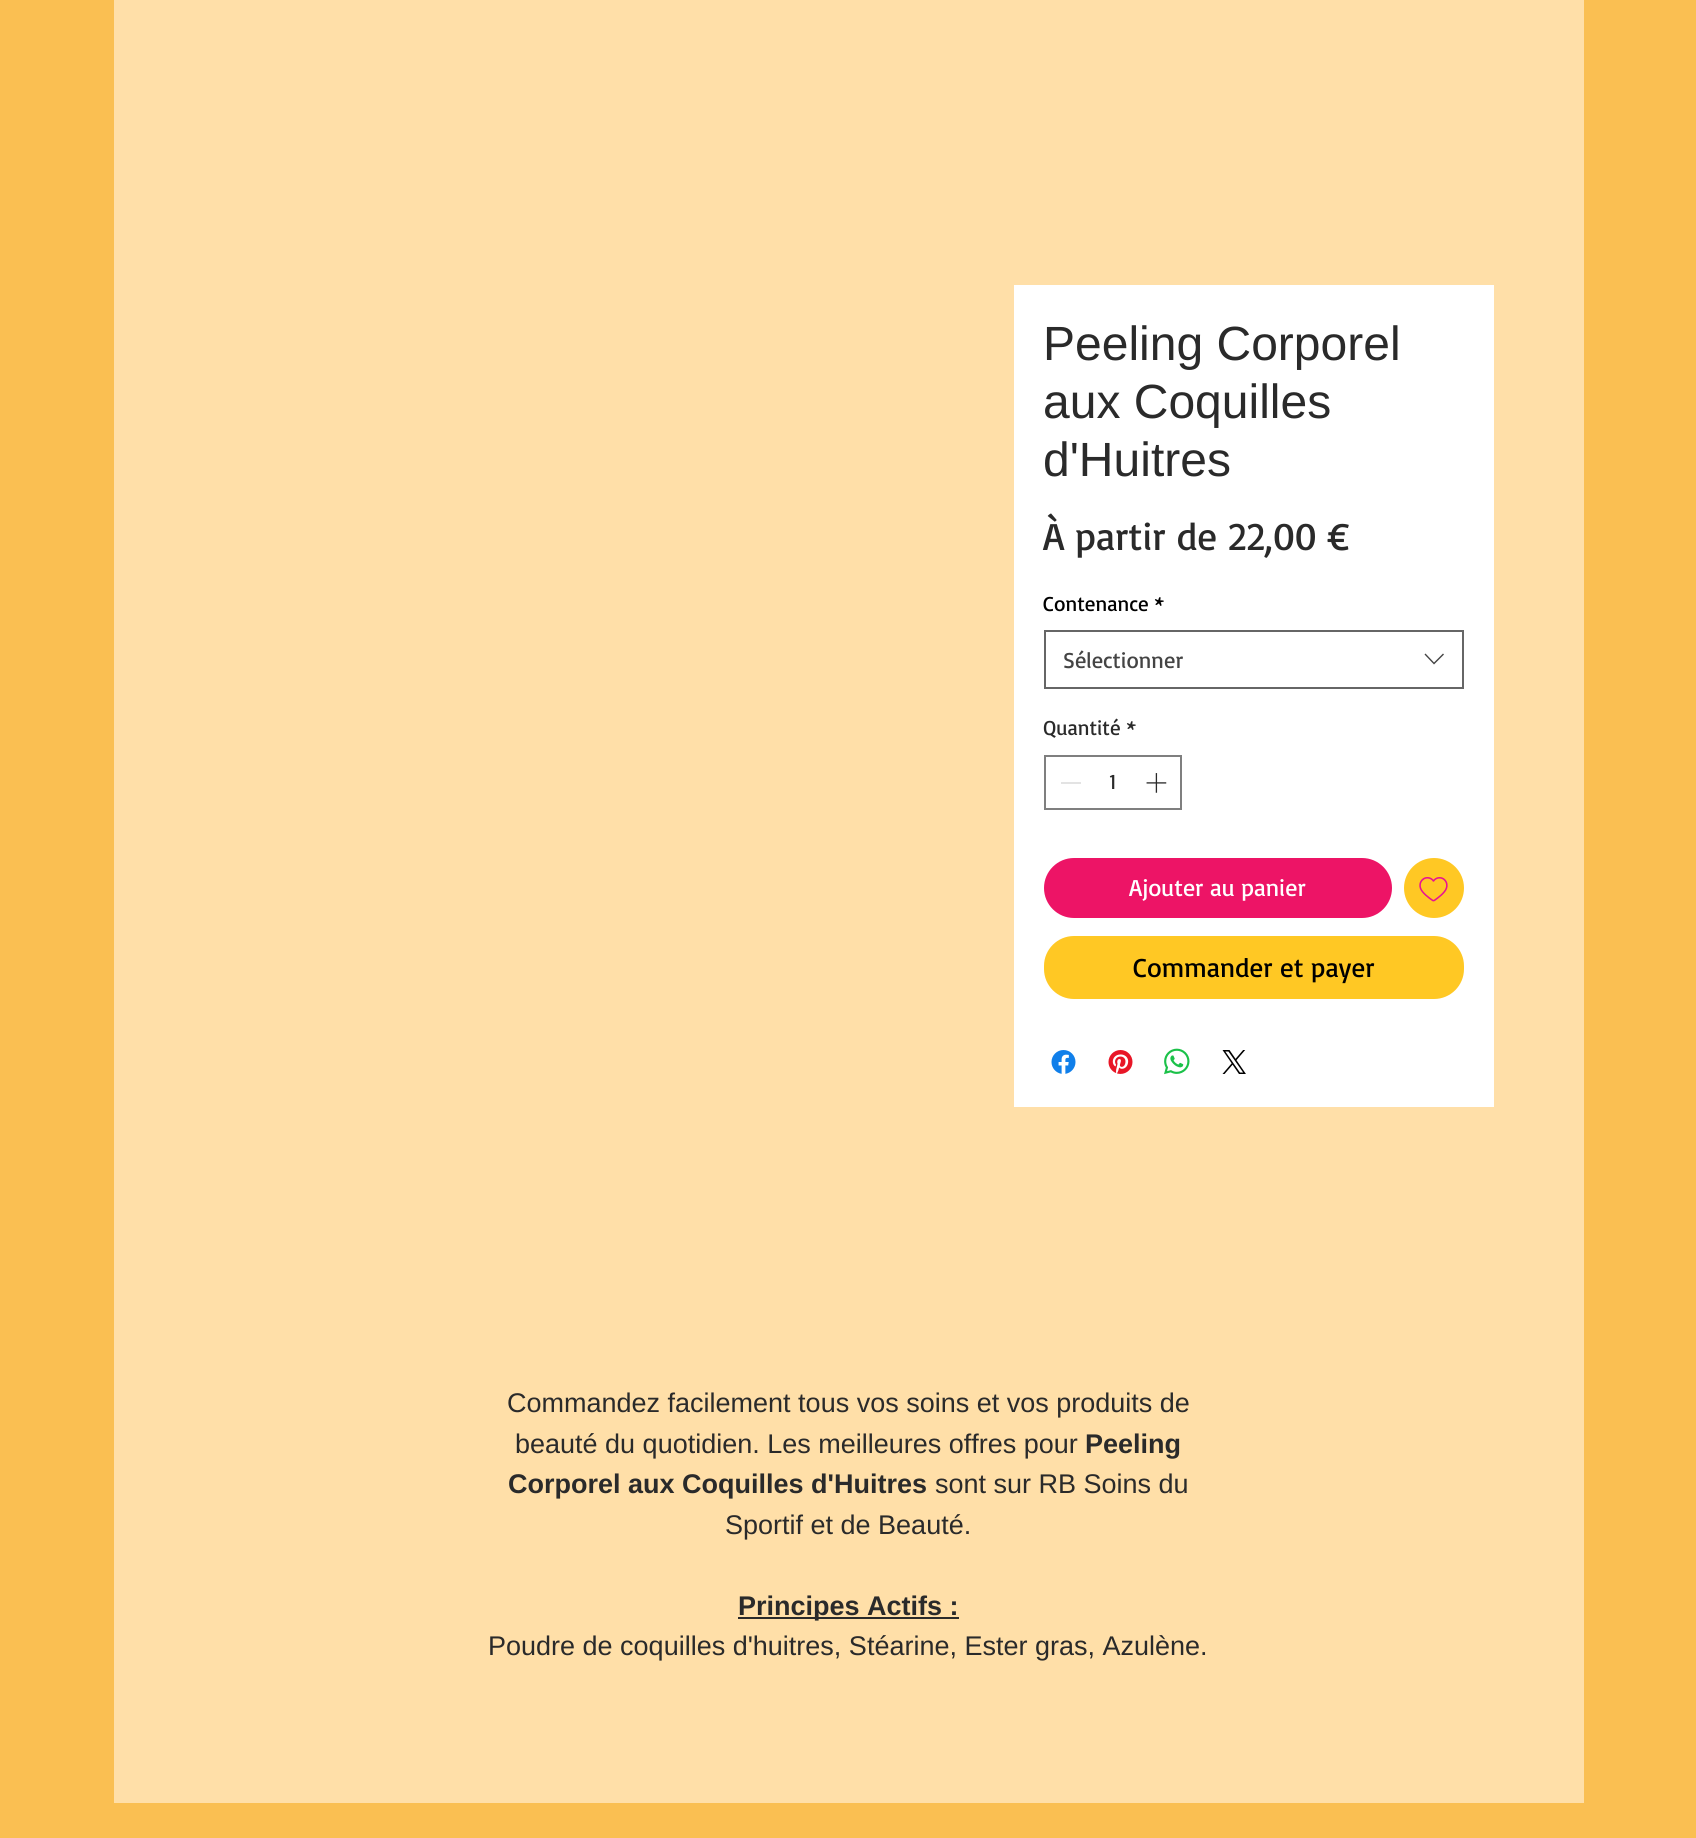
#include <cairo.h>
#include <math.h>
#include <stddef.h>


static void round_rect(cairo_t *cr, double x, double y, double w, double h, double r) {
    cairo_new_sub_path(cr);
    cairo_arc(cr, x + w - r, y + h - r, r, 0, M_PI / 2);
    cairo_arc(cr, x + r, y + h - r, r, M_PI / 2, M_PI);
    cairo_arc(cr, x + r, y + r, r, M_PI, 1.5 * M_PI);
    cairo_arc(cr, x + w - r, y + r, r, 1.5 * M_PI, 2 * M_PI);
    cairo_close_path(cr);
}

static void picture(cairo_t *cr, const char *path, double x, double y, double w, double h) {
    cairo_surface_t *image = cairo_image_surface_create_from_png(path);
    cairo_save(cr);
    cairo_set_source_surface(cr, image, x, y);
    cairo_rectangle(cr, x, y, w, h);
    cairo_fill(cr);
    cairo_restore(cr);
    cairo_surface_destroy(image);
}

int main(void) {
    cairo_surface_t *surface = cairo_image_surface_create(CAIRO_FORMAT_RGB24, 1696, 1838);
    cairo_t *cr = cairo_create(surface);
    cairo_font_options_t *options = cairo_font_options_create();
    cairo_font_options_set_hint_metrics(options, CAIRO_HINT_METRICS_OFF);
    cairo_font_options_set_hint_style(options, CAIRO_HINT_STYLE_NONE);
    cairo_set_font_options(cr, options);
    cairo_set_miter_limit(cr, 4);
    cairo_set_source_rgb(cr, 0.98, 0.749, 0.322);
    cairo_paint(cr);
    cairo_set_source_rgb(cr, 1, 0.875, 0.659);
    cairo_rectangle(cr, 114, 0, 1470, 1803);
    cairo_fill(cr);
    cairo_set_source_rgb(cr, 1, 1, 1);
    cairo_rectangle(cr, 1014, 285, 480, 822);
    cairo_fill(cr);
    cairo_select_font_face(cr, "Liberation Sans", CAIRO_FONT_SLANT_NORMAL, CAIRO_FONT_WEIGHT_NORMAL);
    cairo_set_font_size(cr, 48);
    cairo_set_source_rgb(cr, 0.165, 0.165, 0.165);
    cairo_move_to(cr, 1043, 360);
    cairo_show_text(cr, "Peeling Corporel");
    cairo_move_to(cr, 1043, 418);
    cairo_show_text(cr, "aux Coquilles");
    cairo_move_to(cr, 1043, 476);
    cairo_show_text(cr, "d'Huitres");
    cairo_select_font_face(cr, "Basic", CAIRO_FONT_SLANT_NORMAL, CAIRO_FONT_WEIGHT_NORMAL);
    cairo_set_font_size(cr, 39);
    cairo_move_to(cr, 1043, 550);
    cairo_show_text(cr, "À partir de 22,00 €");
    cairo_set_font_size(cr, 21);
    cairo_set_source_rgb(cr, 0, 0, 0);
    cairo_move_to(cr, 1043, 611);
    cairo_show_text(cr, "Contenance *");
    cairo_rectangle(cr, 1045, 631, 418, 57);
    cairo_set_source_rgb(cr, 0.4, 0.4, 0.4);
    cairo_stroke(cr);
    cairo_set_font_size(cr, 22.5);
    cairo_set_source_rgb(cr, 0.267, 0.267, 0.267);
    cairo_move_to(cr, 1063, 668);
    cairo_show_text(cr, "Sélectionner");
    cairo_set_fill_rule(cr, CAIRO_FILL_RULE_EVEN_ODD);
    cairo_new_path(cr);
    cairo_move_to(cr, 1443, 653.5);
    cairo_line_to(cr, 1444, 654.5);
    cairo_line_to(cr, 1434, 664.5);
    cairo_line_to(cr, 1424.5, 654.5);
    cairo_line_to(cr, 1425.5, 653.5);
    cairo_line_to(cr, 1434, 662.5);
    cairo_close_path(cr);
    cairo_fill(cr);
    cairo_set_font_size(cr, 21);
    cairo_set_source_rgb(cr, 0.165, 0.165, 0.165);
    cairo_move_to(cr, 1043, 735);
    cairo_show_text(cr, "Quantité *");
    cairo_rectangle(cr, 1045, 756, 136, 53);
    cairo_set_source_rgb(cr, 0.498, 0.498, 0.498);
    cairo_stroke(cr);
    cairo_set_source_rgb(cr, 0.89, 0.89, 0.89);
    cairo_rectangle(cr, 1061, 782, 20, 2);
    cairo_fill(cr);
    cairo_set_source_rgb(cr, 0.165, 0.165, 0.165);
    cairo_move_to(cr, 1109, 789);
    cairo_show_text(cr, "1");
    picture(cr, "img1.png", 1146, 773, 21, 20);
    cairo_set_source_rgb(cr, 0.929, 0.082, 0.4);
    round_rect(cr, 1044, 858, 348, 60, 30);
    cairo_fill(cr);
    cairo_set_font_size(cr, 24);
    cairo_set_source_rgb(cr, 1, 1, 1);
    cairo_move_to(cr, 1129, 896);
    cairo_show_text(cr, "Ajouter au panier");
    cairo_set_source_rgb(cr, 1, 0.784, 0.141);
    cairo_new_path(cr);
    cairo_arc(cr, 1434, 888, 30, 0, 2 * M_PI);
    cairo_fill(cr);
    picture(cr, "img2.png", 1419, 877, 29, 25);
    round_rect(cr, 1044, 936, 420, 63, 30);
    cairo_fill(cr);
    cairo_set_font_size(cr, 27);
    cairo_set_source_rgb(cr, 0, 0, 0);
    cairo_move_to(cr, 1133, 977);
    cairo_show_text(cr, "Commander et payer");
    picture(cr, "img3.png", 1051, 1050, 25, 24);
    picture(cr, "img4.png", 1108, 1050, 25, 24);
    picture(cr, "img5.png", 1164, 1048, 26, 27);
    picture(cr, "img6.png", 1222, 1050, 24, 24);
    cairo_select_font_face(cr, "Liberation Sans", CAIRO_FONT_SLANT_NORMAL, CAIRO_FONT_WEIGHT_NORMAL);
    cairo_set_source_rgb(cr, 0.165, 0.165, 0.165);
    cairo_move_to(cr, 507, 1412);
    cairo_show_text(cr, "Commandez facilement tous vos soins et vos produits de");
    cairo_move_to(cr, 515, 1453);
    cairo_show_text(cr, "beauté du quotidien. Les meilleures offres pour");
    cairo_select_font_face(cr, "Liberation Sans", CAIRO_FONT_SLANT_NORMAL, CAIRO_FONT_WEIGHT_BOLD);
    cairo_move_to(cr, 1085, 1453);
    cairo_show_text(cr, "Peeling");
    cairo_move_to(cr, 508, 1493);
    cairo_show_text(cr, "Corporel aux Coquilles d'Huitres");
    cairo_select_font_face(cr, "Liberation Sans", CAIRO_FONT_SLANT_NORMAL, CAIRO_FONT_WEIGHT_NORMAL);
    cairo_move_to(cr, 935, 1493);
    cairo_show_text(cr, "sont sur RB Soins du");
    cairo_move_to(cr, 725, 1534);
    cairo_show_text(cr, "Sportif et de Beauté.");
    cairo_rectangle(cr, 738, 1617, 221, 2);
    cairo_fill(cr);
    cairo_select_font_face(cr, "Liberation Sans", CAIRO_FONT_SLANT_NORMAL, CAIRO_FONT_WEIGHT_BOLD);
    cairo_move_to(cr, 738, 1615);
    cairo_show_text(cr, "Principes Actifs :");
    cairo_select_font_face(cr, "Liberation Sans", CAIRO_FONT_SLANT_NORMAL, CAIRO_FONT_WEIGHT_NORMAL);
    cairo_move_to(cr, 488, 1655);
    cairo_show_text(cr, "Poudre de coquilles d'huitres, Stéarine, Ester gras, Azulène.");
    cairo_surface_write_to_png(surface, "page.png");
    cairo_font_options_destroy(options);
    cairo_destroy(cr);
    cairo_surface_destroy(surface);
    return 0;
}
